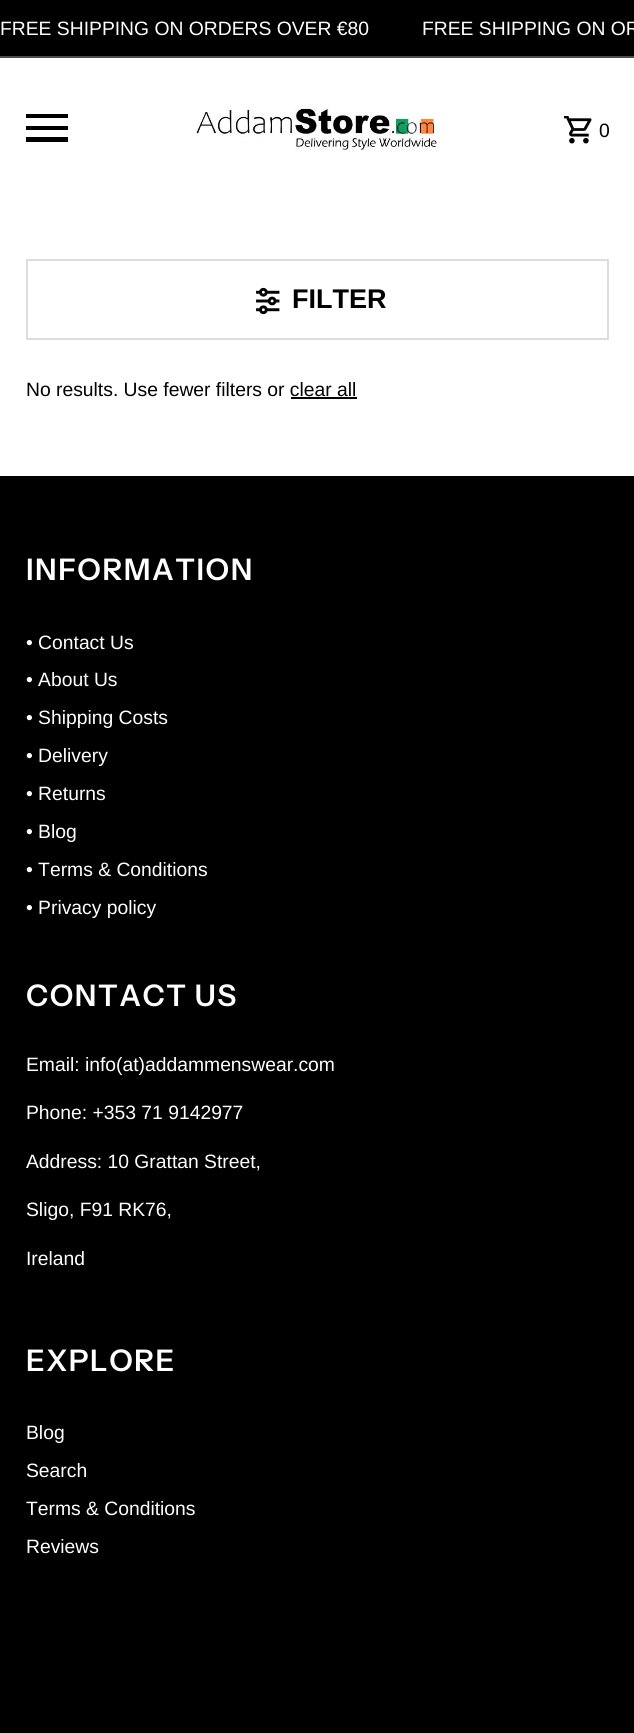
#include <cairo.h>
#include <math.h>
#include <stddef.h>


static void spaced_text(cairo_t *cr, double x, double y, const char *s, double letter, double word) {
    cairo_move_to(cr, x, y);
    while (*s) {
        char ch[5] = {0};
        int n = 0;
        do ch[n++] = *s++; while ((*s & 0xC0) == 0x80);
        cairo_show_text(cr, ch);
        cairo_rel_move_to(cr, letter + word * (*ch == ' '), 0);
    }
}

static void picture(cairo_t *cr, const char *path, double x, double y, double w, double h) {
    cairo_surface_t *image = cairo_image_surface_create_from_png(path);
    cairo_save(cr);
    cairo_set_source_surface(cr, image, x, y);
    cairo_rectangle(cr, x, y, w, h);
    cairo_fill(cr);
    cairo_restore(cr);
    cairo_surface_destroy(image);
}

int main(void) {
    cairo_surface_t *surface = cairo_image_surface_create(CAIRO_FORMAT_RGB24, 634, 1733);
    cairo_t *cr = cairo_create(surface);
    cairo_font_options_t *options = cairo_font_options_create();
    cairo_font_options_set_hint_metrics(options, CAIRO_HINT_METRICS_OFF);
    cairo_font_options_set_hint_style(options, CAIRO_HINT_STYLE_NONE);
    cairo_set_font_options(cr, options);
    cairo_set_miter_limit(cr, 4);
    cairo_set_source_rgb(cr, 1, 1, 1);
    cairo_paint(cr);
    cairo_set_source_rgb(cr, 0, 0, 0);
    cairo_rectangle(cr, 0, 0, 634, 56);
    cairo_fill(cr);
    cairo_select_font_face(cr, "Arimo", CAIRO_FONT_SLANT_NORMAL, CAIRO_FONT_WEIGHT_NORMAL);
    cairo_set_font_size(cr, 19.3);
    cairo_set_source_rgb(cr, 1, 1, 1);
    cairo_move_to(cr, 0, 35);
    cairo_show_text(cr, "FREE SHIPPING ON ORDERS OVER €80");
    cairo_move_to(cr, 422, 35);
    cairo_show_text(cr, "FREE SHIPPING ON OR");
    cairo_set_source_rgb(cr, 0.302, 0.302, 0.302);
    cairo_rectangle(cr, 0, 56, 634, 2);
    cairo_fill(cr);
    cairo_set_source_rgb(cr, 0, 0, 0);
    cairo_rectangle(cr, 26, 137, 42, 5);
    cairo_fill(cr);
    cairo_rectangle(cr, 26, 126, 42, 4);
    cairo_fill(cr);
    cairo_rectangle(cr, 26, 114, 42, 4);
    cairo_fill(cr);
    picture(cr, "img1.png", 196, 108, 243, 42);
    picture(cr, "img2.png", 564, 116, 28, 28);
    spaced_text(cr, 599, 137, "0", 2, 0);
    cairo_rectangle(cr, 27, 260, 581, 79);
    cairo_set_source_rgb(cr, 0.867, 0.867, 0.867);
    cairo_stroke(cr);
    picture(cr, "img3.png", 256, 287, 24, 28);
    cairo_select_font_face(cr, "Arimo", CAIRO_FONT_SLANT_NORMAL, CAIRO_FONT_WEIGHT_BOLD);
    cairo_set_font_size(cr, 27);
    cairo_set_source_rgb(cr, 0, 0, 0);
    cairo_move_to(cr, 292, 308);
    cairo_show_text(cr, "FILTER");
    cairo_select_font_face(cr, "Arimo", CAIRO_FONT_SLANT_NORMAL, CAIRO_FONT_WEIGHT_NORMAL);
    cairo_set_font_size(cr, 19.3);
    cairo_move_to(cr, 26, 396);
    cairo_show_text(cr, "No results. Use fewer filters or clear all");
    cairo_rectangle(cr, 291, 397, 66, 2);
    cairo_fill(cr);
    cairo_rectangle(cr, 0, 476, 634, 1257);
    cairo_fill(cr);
    cairo_select_font_face(cr, "Instrument Sans SemiBold", CAIRO_FONT_SLANT_NORMAL, CAIRO_FONT_WEIGHT_NORMAL);
    cairo_set_font_size(cr, 29.75);
    cairo_set_source_rgb(cr, 1, 1, 1);
    spaced_text(cr, 26, 580, "INFORMATION", 1.5, 0);
    cairo_select_font_face(cr, "Arimo", CAIRO_FONT_SLANT_NORMAL, CAIRO_FONT_WEIGHT_NORMAL);
    cairo_set_font_size(cr, 19.3);
    cairo_move_to(cr, 26, 649);
    cairo_show_text(cr, "• Contact Us");
    cairo_move_to(cr, 26, 686);
    cairo_show_text(cr, "• About Us");
    cairo_move_to(cr, 26, 724);
    cairo_show_text(cr, "• Shipping Costs");
    cairo_move_to(cr, 26, 762);
    cairo_show_text(cr, "• Delivery");
    cairo_move_to(cr, 26, 800);
    cairo_show_text(cr, "• Returns");
    cairo_move_to(cr, 26, 838);
    cairo_show_text(cr, "• Blog");
    cairo_move_to(cr, 26, 876);
    cairo_show_text(cr, "• Terms & Conditions");
    cairo_move_to(cr, 26, 914);
    cairo_show_text(cr, "• Privacy policy");
    cairo_select_font_face(cr, "Instrument Sans SemiBold", CAIRO_FONT_SLANT_NORMAL, CAIRO_FONT_WEIGHT_NORMAL);
    cairo_set_font_size(cr, 29.75);
    spaced_text(cr, 26, 1006, "CONTACT US", 1.5, 0);
    cairo_select_font_face(cr, "Arimo", CAIRO_FONT_SLANT_NORMAL, CAIRO_FONT_WEIGHT_NORMAL);
    cairo_set_font_size(cr, 19.3);
    cairo_move_to(cr, 26, 1071);
    cairo_show_text(cr, "Email: info(at)addammenswear.com");
    cairo_move_to(cr, 26, 1119);
    cairo_show_text(cr, "Phone: +353 71 9142977");
    cairo_move_to(cr, 26, 1168);
    cairo_show_text(cr, "Address: 10 Grattan Street,");
    cairo_move_to(cr, 26, 1216);
    cairo_show_text(cr, "Sligo, F91 RK76,");
    cairo_move_to(cr, 26, 1265);
    cairo_show_text(cr, "Ireland");
    cairo_select_font_face(cr, "Instrument Sans SemiBold", CAIRO_FONT_SLANT_NORMAL, CAIRO_FONT_WEIGHT_NORMAL);
    cairo_set_font_size(cr, 29.75);
    spaced_text(cr, 26, 1371, "EXPLORE", 1.5, 0);
    cairo_select_font_face(cr, "Arimo", CAIRO_FONT_SLANT_NORMAL, CAIRO_FONT_WEIGHT_NORMAL);
    cairo_set_font_size(cr, 19.3);
    cairo_move_to(cr, 26, 1439);
    cairo_show_text(cr, "Blog");
    cairo_move_to(cr, 26, 1477);
    cairo_show_text(cr, "Search");
    cairo_move_to(cr, 26, 1515);
    cairo_show_text(cr, "Terms & Conditions");
    cairo_move_to(cr, 26, 1553);
    cairo_show_text(cr, "Reviews");
    cairo_surface_write_to_png(surface, "page.png");
    cairo_font_options_destroy(options);
    cairo_destroy(cr);
    cairo_surface_destroy(surface);
    return 0;
}
